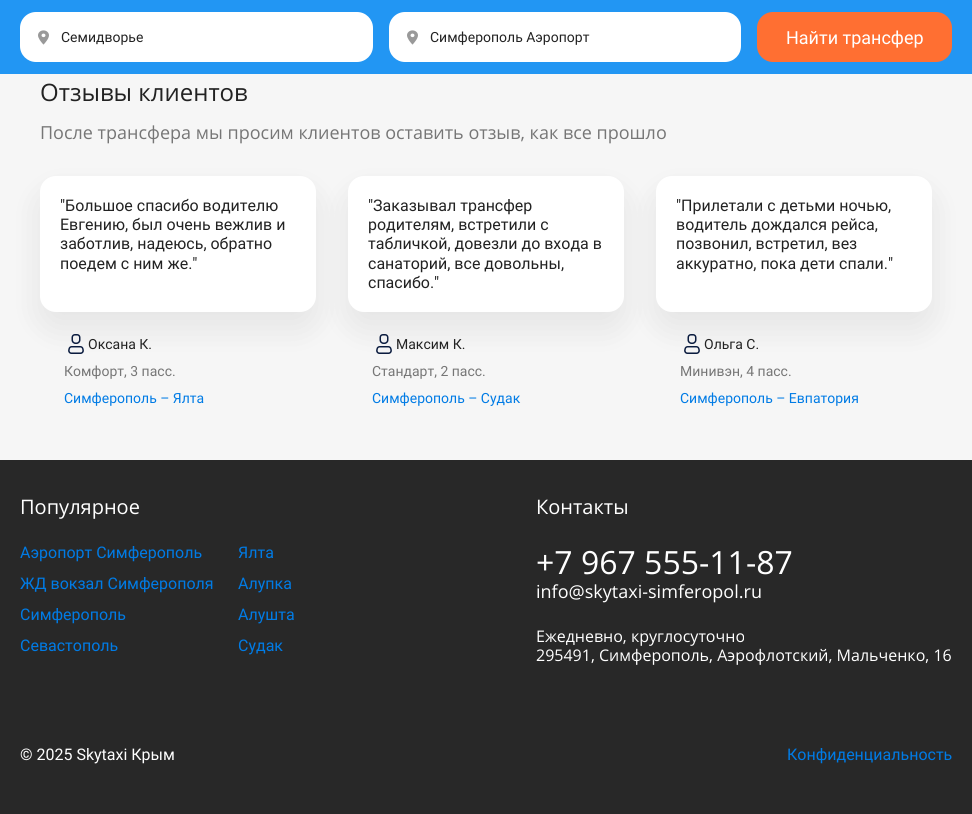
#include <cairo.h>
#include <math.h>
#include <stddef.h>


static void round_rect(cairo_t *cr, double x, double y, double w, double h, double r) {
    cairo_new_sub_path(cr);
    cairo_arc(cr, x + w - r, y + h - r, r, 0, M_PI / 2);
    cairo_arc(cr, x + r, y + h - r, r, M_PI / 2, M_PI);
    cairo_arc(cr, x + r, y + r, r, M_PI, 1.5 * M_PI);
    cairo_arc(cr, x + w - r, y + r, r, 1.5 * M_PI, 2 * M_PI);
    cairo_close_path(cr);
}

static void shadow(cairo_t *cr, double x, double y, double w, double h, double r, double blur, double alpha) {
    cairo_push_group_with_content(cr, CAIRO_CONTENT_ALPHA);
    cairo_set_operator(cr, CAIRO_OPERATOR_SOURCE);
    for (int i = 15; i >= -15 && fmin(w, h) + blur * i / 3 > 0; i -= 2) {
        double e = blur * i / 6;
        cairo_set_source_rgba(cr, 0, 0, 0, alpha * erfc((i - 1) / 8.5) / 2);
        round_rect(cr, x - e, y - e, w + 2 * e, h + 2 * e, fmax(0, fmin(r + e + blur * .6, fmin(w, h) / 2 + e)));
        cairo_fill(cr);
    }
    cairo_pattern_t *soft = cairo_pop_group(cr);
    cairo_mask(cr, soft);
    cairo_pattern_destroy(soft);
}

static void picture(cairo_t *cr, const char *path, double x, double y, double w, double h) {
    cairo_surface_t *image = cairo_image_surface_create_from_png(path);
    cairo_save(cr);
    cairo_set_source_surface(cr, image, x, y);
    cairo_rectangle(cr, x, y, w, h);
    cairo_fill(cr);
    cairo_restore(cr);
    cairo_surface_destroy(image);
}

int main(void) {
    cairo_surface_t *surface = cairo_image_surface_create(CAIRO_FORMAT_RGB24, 972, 814);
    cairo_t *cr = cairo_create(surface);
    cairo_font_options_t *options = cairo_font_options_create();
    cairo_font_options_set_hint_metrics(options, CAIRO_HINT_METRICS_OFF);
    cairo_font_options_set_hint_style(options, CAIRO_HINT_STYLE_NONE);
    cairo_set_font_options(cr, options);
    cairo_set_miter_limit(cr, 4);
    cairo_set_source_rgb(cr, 0.961, 0.961, 0.961);
    cairo_paint(cr);
    cairo_set_source_rgb(cr, 0.133, 0.588, 0.953);
    cairo_rectangle(cr, 0, 0, 972, 74);
    cairo_fill(cr);
    cairo_set_source_rgb(cr, 1, 1, 1);
    round_rect(cr, 20, 12, 353, 50, 16);
    cairo_fill(cr);
    picture(cr, "img1.png", 38, 30, 11, 15);
    cairo_select_font_face(cr, "Roboto", CAIRO_FONT_SLANT_NORMAL, CAIRO_FONT_WEIGHT_NORMAL);
    cairo_set_font_size(cr, 14);
    cairo_set_source_rgb(cr, 0.133, 0.133, 0.133);
    cairo_move_to(cr, 61, 42);
    cairo_show_text(cr, "Семидворье");
    cairo_set_source_rgb(cr, 1, 1, 1);
    round_rect(cr, 389, 12, 352, 50, 16);
    cairo_fill(cr);
    picture(cr, "img1.png", 407, 30, 11, 15);
    cairo_set_source_rgb(cr, 0.133, 0.133, 0.133);
    cairo_move_to(cr, 430, 42);
    cairo_show_text(cr, "Симферополь Аэропорт");
    cairo_set_source_rgb(cr, 1, 0.435, 0.196);
    round_rect(cr, 757, 12, 195, 50, 16);
    cairo_fill(cr);
    cairo_set_font_size(cr, 18);
    cairo_set_source_rgb(cr, 1, 1, 1);
    cairo_move_to(cr, 786, 44);
    cairo_show_text(cr, "Найти трансфер");
    cairo_select_font_face(cr, "Open Sans", CAIRO_FONT_SLANT_NORMAL, CAIRO_FONT_WEIGHT_NORMAL);
    cairo_set_font_size(cr, 24);
    cairo_set_source_rgb(cr, 0.133, 0.133, 0.133);
    cairo_move_to(cr, 40, 101);
    cairo_show_text(cr, "Отзывы клиентов");
    cairo_set_font_size(cr, 18);
    cairo_set_source_rgb(cr, 0.463, 0.463, 0.463);
    cairo_move_to(cr, 40, 139);
    cairo_show_text(cr, "После трансфера мы просим клиентов оставить отзыв, как все прошло");
    cairo_set_source_rgb(cr, 0.071, 0.071, 0.071);
    shadow(cr, 40, 192, 276, 136, 16, 16, 0.08);
    cairo_set_source_rgb(cr, 1, 1, 1);
    round_rect(cr, 40, 176, 276, 136, 16);
    cairo_fill(cr);
    cairo_select_font_face(cr, "Roboto", CAIRO_FONT_SLANT_NORMAL, CAIRO_FONT_WEIGHT_NORMAL);
    cairo_set_font_size(cr, 16);
    cairo_set_source_rgb(cr, 0.133, 0.133, 0.133);
    cairo_move_to(cr, 60, 211);
    cairo_show_text(cr, "\"Большое спасибо водителю");
    cairo_move_to(cr, 60, 230);
    cairo_show_text(cr, "Евгению, был очень вежлив и");
    cairo_move_to(cr, 60, 249);
    cairo_show_text(cr, "заботлив, надеюсь, обратно");
    cairo_move_to(cr, 60, 269);
    cairo_show_text(cr, "поедем с ним же.\"");
    picture(cr, "img2.png", 68, 334, 16, 20);
    cairo_set_font_size(cr, 14);
    cairo_move_to(cr, 88, 349);
    cairo_show_text(cr, "Оксана К.");
    cairo_set_source_rgb(cr, 0.463, 0.463, 0.463);
    cairo_move_to(cr, 64, 376);
    cairo_show_text(cr, "Комфорт, 3 пасс.");
    cairo_set_source_rgb(cr, 0, 0.482, 0.898);
    cairo_move_to(cr, 64, 403);
    cairo_show_text(cr, "Симферополь – Ялта");
    cairo_set_source_rgb(cr, 0.071, 0.071, 0.071);
    shadow(cr, 348, 192, 276, 136, 16, 16, 0.08);
    cairo_set_source_rgb(cr, 1, 1, 1);
    round_rect(cr, 348, 176, 276, 136, 16);
    cairo_fill(cr);
    cairo_set_font_size(cr, 16);
    cairo_set_source_rgb(cr, 0.133, 0.133, 0.133);
    cairo_move_to(cr, 368, 211);
    cairo_show_text(cr, "\"Заказывал трансфер");
    cairo_move_to(cr, 368, 230);
    cairo_show_text(cr, "родителям, встретили с");
    cairo_move_to(cr, 368, 249);
    cairo_show_text(cr, "табличкой, довезли до входа в");
    cairo_move_to(cr, 368, 269);
    cairo_show_text(cr, "санаторий, все довольны,");
    cairo_move_to(cr, 368, 288);
    cairo_show_text(cr, "спасибо.\"");
    picture(cr, "img2.png", 376, 334, 16, 20);
    cairo_set_font_size(cr, 14);
    cairo_move_to(cr, 396, 349);
    cairo_show_text(cr, "Максим К.");
    cairo_set_source_rgb(cr, 0.463, 0.463, 0.463);
    cairo_move_to(cr, 372, 376);
    cairo_show_text(cr, "Стандарт, 2 пасс.");
    cairo_set_source_rgb(cr, 0, 0.482, 0.898);
    cairo_move_to(cr, 372, 403);
    cairo_show_text(cr, "Симферополь – Судак");
    cairo_set_source_rgb(cr, 0.071, 0.071, 0.071);
    shadow(cr, 656, 192, 276, 136, 16, 16, 0.08);
    cairo_set_source_rgb(cr, 1, 1, 1);
    round_rect(cr, 656, 176, 276, 136, 16);
    cairo_fill(cr);
    cairo_set_font_size(cr, 16);
    cairo_set_source_rgb(cr, 0.133, 0.133, 0.133);
    cairo_move_to(cr, 676, 211);
    cairo_show_text(cr, "\"Прилетали с детьми ночью,");
    cairo_move_to(cr, 676, 230);
    cairo_show_text(cr, "водитель дождался рейса,");
    cairo_move_to(cr, 676, 249);
    cairo_show_text(cr, "позвонил, встретил, вез");
    cairo_move_to(cr, 676, 269);
    cairo_show_text(cr, "аккуратно, пока дети спали.\"");
    picture(cr, "img2.png", 684, 334, 16, 20);
    cairo_set_font_size(cr, 14);
    cairo_move_to(cr, 704, 349);
    cairo_show_text(cr, "Ольга С.");
    cairo_set_source_rgb(cr, 0.463, 0.463, 0.463);
    cairo_move_to(cr, 680, 376);
    cairo_show_text(cr, "Минивэн, 4 пасс.");
    cairo_set_source_rgb(cr, 0, 0.482, 0.898);
    cairo_move_to(cr, 680, 403);
    cairo_show_text(cr, "Симферополь – Евпатория");
    cairo_set_source_rgb(cr, 0.157, 0.157, 0.157);
    cairo_rectangle(cr, 0, 460, 972, 354);
    cairo_fill(cr);
    cairo_select_font_face(cr, "Open Sans", CAIRO_FONT_SLANT_NORMAL, CAIRO_FONT_WEIGHT_NORMAL);
    cairo_set_font_size(cr, 20);
    cairo_set_source_rgb(cr, 1, 1, 1);
    cairo_move_to(cr, 20, 514);
    cairo_show_text(cr, "Популярное");
    cairo_select_font_face(cr, "Roboto", CAIRO_FONT_SLANT_NORMAL, CAIRO_FONT_WEIGHT_NORMAL);
    cairo_set_font_size(cr, 16);
    cairo_set_source_rgb(cr, 0, 0.482, 0.898);
    cairo_move_to(cr, 20, 558);
    cairo_show_text(cr, "Аэропорт Симферополь");
    cairo_move_to(cr, 20, 589);
    cairo_show_text(cr, "ЖД вокзал Симферополя");
    cairo_move_to(cr, 20, 620);
    cairo_show_text(cr, "Симферополь");
    cairo_move_to(cr, 20, 651);
    cairo_show_text(cr, "Севастополь");
    cairo_move_to(cr, 238, 558);
    cairo_show_text(cr, "Ялта");
    cairo_move_to(cr, 238, 589);
    cairo_show_text(cr, "Алупка");
    cairo_move_to(cr, 238, 620);
    cairo_show_text(cr, "Алушта");
    cairo_move_to(cr, 238, 651);
    cairo_show_text(cr, "Судак");
    cairo_select_font_face(cr, "Open Sans", CAIRO_FONT_SLANT_NORMAL, CAIRO_FONT_WEIGHT_NORMAL);
    cairo_set_font_size(cr, 20);
    cairo_set_source_rgb(cr, 1, 1, 1);
    cairo_move_to(cr, 536, 514);
    cairo_show_text(cr, "Контакты");
    cairo_set_font_size(cr, 32);
    cairo_move_to(cr, 536, 574);
    cairo_show_text(cr, "+7 967 555-11-87");
    cairo_set_font_size(cr, 18);
    cairo_move_to(cr, 536, 598);
    cairo_show_text(cr, "info@skytaxi-simferopol.ru");
    cairo_set_font_size(cr, 16);
    cairo_move_to(cr, 536, 642);
    cairo_show_text(cr, "Ежедневно, круглосуточно");
    cairo_move_to(cr, 536, 661);
    cairo_show_text(cr, "295491, Симферополь, Аэрофлотский, Мальченко, 16");
    cairo_select_font_face(cr, "Roboto", CAIRO_FONT_SLANT_NORMAL, CAIRO_FONT_WEIGHT_NORMAL);
    cairo_move_to(cr, 20, 760);
    cairo_show_text(cr, "© 2025 Skytaxi Крым");
    cairo_set_source_rgb(cr, 0, 0.482, 0.898);
    cairo_move_to(cr, 787, 760);
    cairo_show_text(cr, "Конфиденциальность");
    cairo_surface_write_to_png(surface, "page.png");
    cairo_font_options_destroy(options);
    cairo_destroy(cr);
    cairo_surface_destroy(surface);
    return 0;
}
